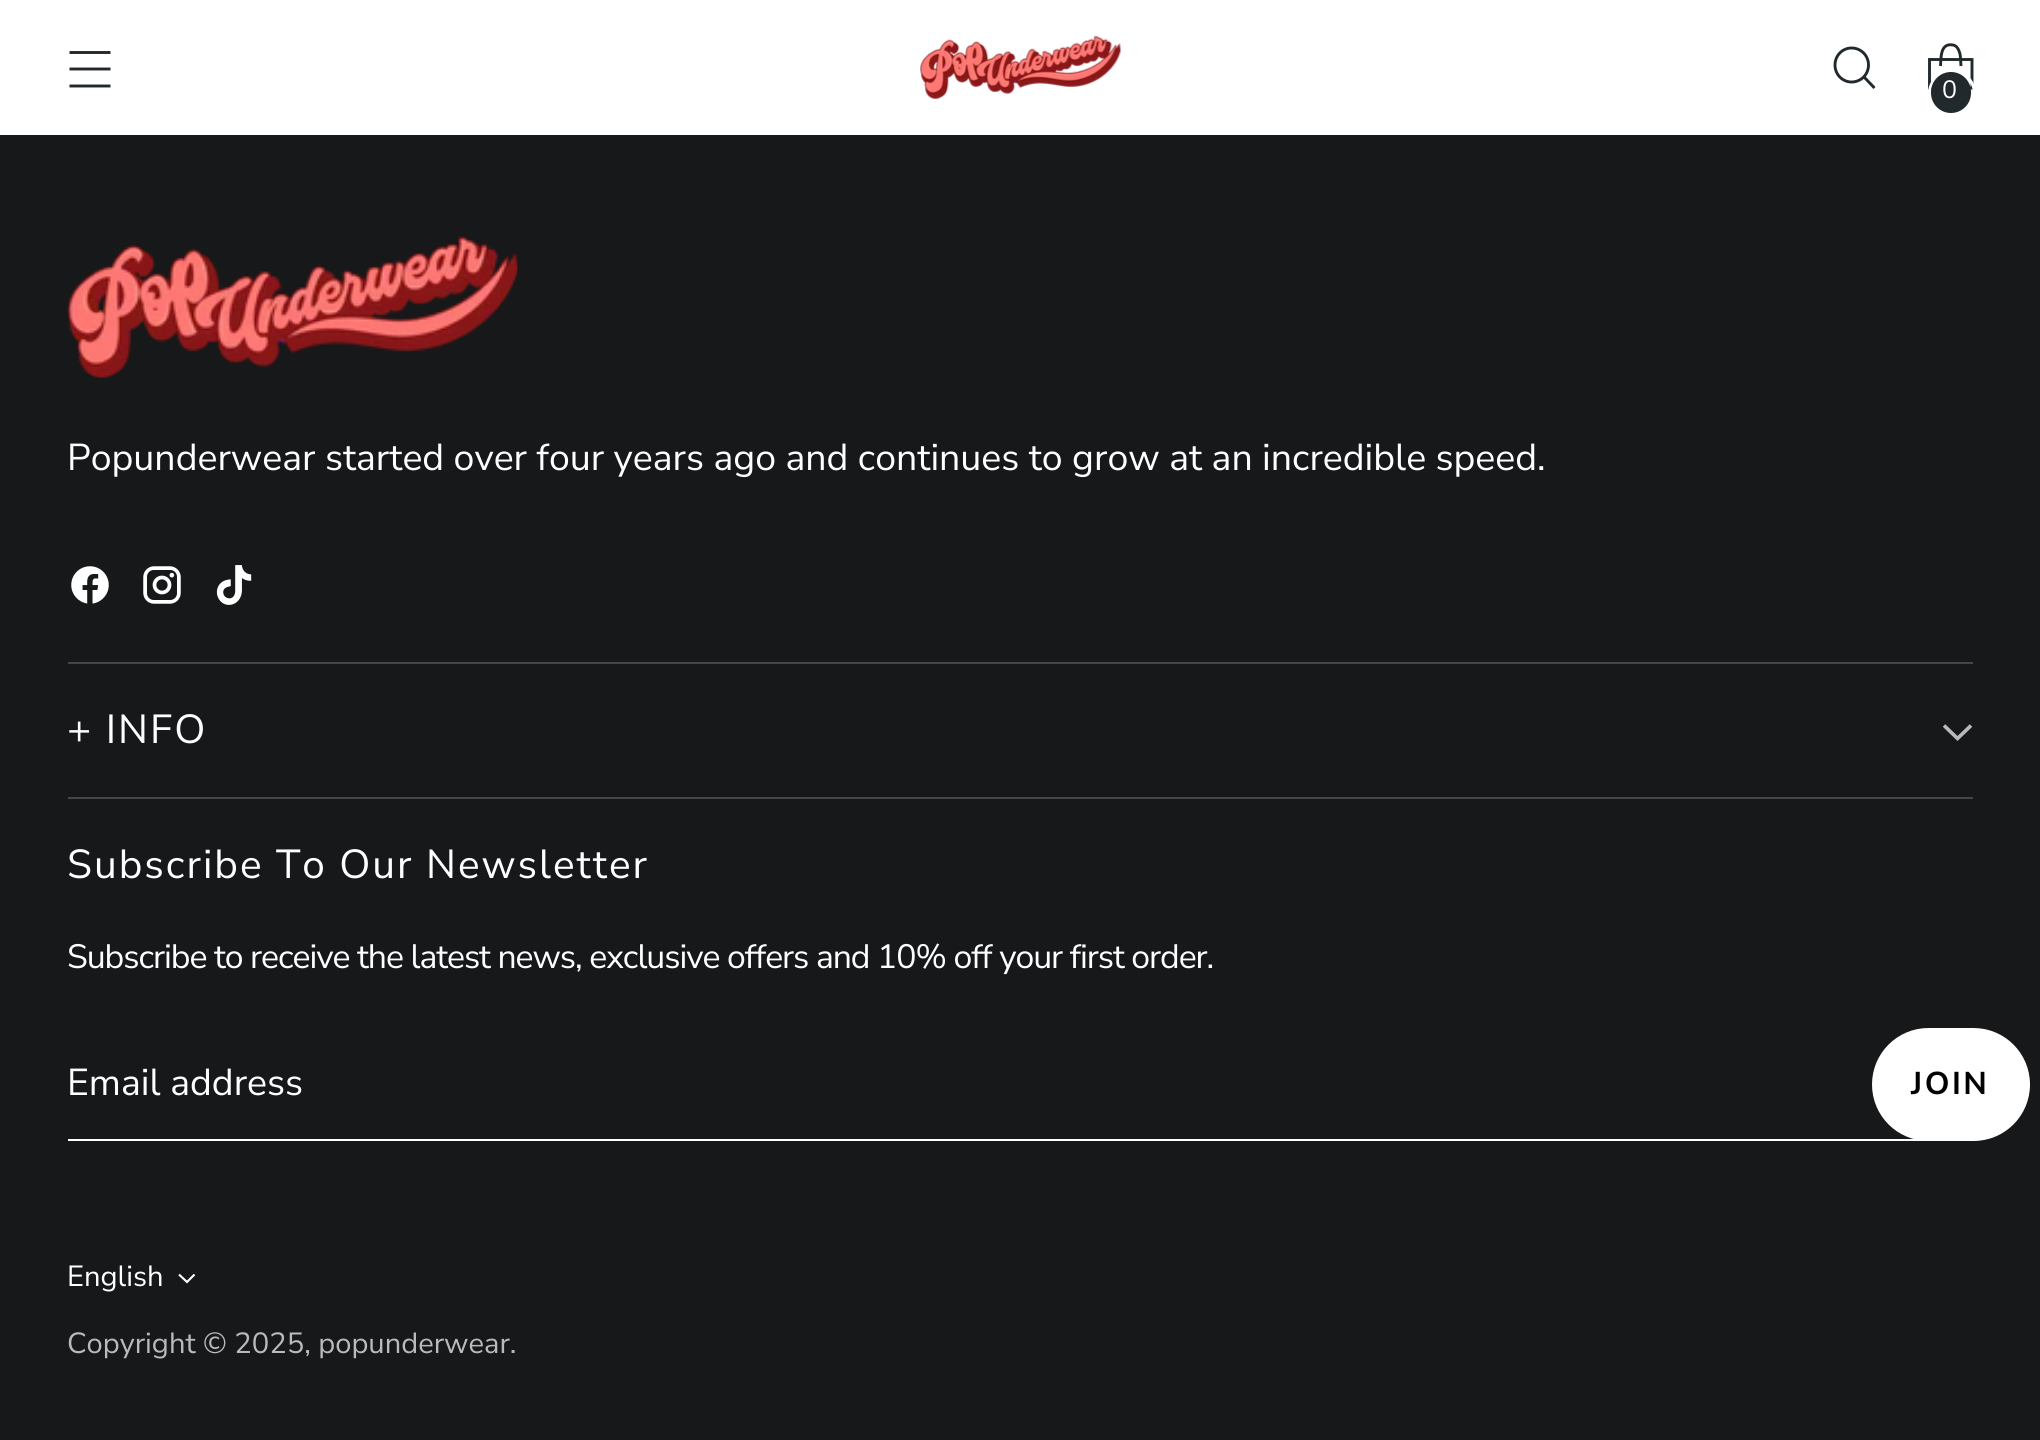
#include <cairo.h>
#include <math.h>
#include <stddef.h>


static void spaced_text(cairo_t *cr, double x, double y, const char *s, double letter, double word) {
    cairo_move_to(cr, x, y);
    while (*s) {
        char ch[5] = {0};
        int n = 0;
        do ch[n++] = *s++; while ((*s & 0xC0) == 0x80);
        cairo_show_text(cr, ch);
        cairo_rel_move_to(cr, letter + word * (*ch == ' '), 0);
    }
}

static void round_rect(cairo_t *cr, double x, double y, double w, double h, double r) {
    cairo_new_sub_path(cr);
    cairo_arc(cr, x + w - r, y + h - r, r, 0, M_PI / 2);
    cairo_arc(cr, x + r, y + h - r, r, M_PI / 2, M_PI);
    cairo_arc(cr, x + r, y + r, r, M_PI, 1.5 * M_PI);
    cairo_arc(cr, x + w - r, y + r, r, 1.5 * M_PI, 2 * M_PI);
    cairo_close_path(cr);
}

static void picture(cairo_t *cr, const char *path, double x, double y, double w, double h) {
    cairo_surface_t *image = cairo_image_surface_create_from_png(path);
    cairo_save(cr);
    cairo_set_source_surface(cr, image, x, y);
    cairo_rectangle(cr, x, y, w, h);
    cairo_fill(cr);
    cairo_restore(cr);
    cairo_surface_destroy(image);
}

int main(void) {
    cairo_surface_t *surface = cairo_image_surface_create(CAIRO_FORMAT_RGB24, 2040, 1440);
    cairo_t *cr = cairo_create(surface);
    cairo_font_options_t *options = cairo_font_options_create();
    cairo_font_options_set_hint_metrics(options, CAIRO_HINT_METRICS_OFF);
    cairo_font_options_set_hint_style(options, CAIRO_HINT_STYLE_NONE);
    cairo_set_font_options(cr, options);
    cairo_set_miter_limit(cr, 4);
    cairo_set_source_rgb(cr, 0.09, 0.094, 0.098);
    cairo_paint(cr);
    cairo_set_source_rgb(cr, 1, 1, 1);
    cairo_rectangle(cr, 0, 0, 2040, 135);
    cairo_fill(cr);
    cairo_new_path(cr);
    cairo_move_to(cr, 69.5, 69);
    cairo_line_to(cr, 110.5, 69);
    cairo_move_to(cr, 69.5, 52.5);
    cairo_line_to(cr, 110.5, 52.5);
    cairo_move_to(cr, 69.5, 86);
    cairo_line_to(cr, 110.5, 86);
    cairo_set_source_rgb(cr, 0.133, 0.161, 0.176);
    cairo_set_line_width(cr, 2.9);
    cairo_stroke(cr);
    picture(cr, "img1.png", 920, 35, 201, 64);
    cairo_new_path(cr);
    cairo_move_to(cr, 1851.5, 82);
    cairo_curve_to(cr, 1861, 82, 1868.5, 74.5, 1868.5, 65);
    cairo_curve_to(cr, 1868.5, 55.5, 1861, 48, 1851.5, 48);
    cairo_curve_to(cr, 1842.5, 48, 1835, 55.5, 1835, 65);
    cairo_curve_to(cr, 1835, 74.5, 1842.5, 82, 1851.5, 82);
    cairo_close_path(cr);
    cairo_set_line_cap(cr, CAIRO_LINE_CAP_ROUND);
    cairo_stroke(cr);
    cairo_new_path(cr);
    cairo_move_to(cr, 1864, 77);
    cairo_line_to(cr, 1874.5, 88);
    cairo_set_line_cap(cr, CAIRO_LINE_CAP_BUTT);
    cairo_stroke(cr);
    cairo_new_path(cr);
    cairo_move_to(cr, 1961, 66);
    cairo_curve_to(cr, 1960.5, 61, 1961, 55.5, 1959, 51);
    cairo_curve_to(cr, 1958, 48, 1956, 45.5, 1953, 45);
    cairo_curve_to(cr, 1940, 42.5, 1941, 58.5, 1940.5, 66);
    cairo_set_line_join(cr, CAIRO_LINE_JOIN_BEVEL);
    cairo_stroke(cr);
    cairo_new_path(cr);
    cairo_move_to(cr, 1972, 88);
    cairo_line_to(cr, 1972, 59.5);
    cairo_line_to(cr, 1929.5, 59.5);
    cairo_line_to(cr, 1929.5, 88);
    cairo_close_path(cr);
    cairo_set_line_join(cr, CAIRO_LINE_JOIN_MITER);
    cairo_stroke(cr);
    round_rect(cr, 1929.5, 71.5, 45, 44, 22);
    cairo_set_source_rgb(cr, 1, 1, 1);
    cairo_set_line_width(cr, 3);
    cairo_stroke(cr);
    cairo_set_source_rgb(cr, 0.133, 0.161, 0.176);
    round_rect(cr, 1931, 72, 40, 41, 20);
    cairo_fill(cr);
    cairo_select_font_face(cr, "Nunito Sans", CAIRO_FONT_SLANT_NORMAL, CAIRO_FONT_WEIGHT_NORMAL);
    cairo_set_font_size(cr, 25);
    cairo_set_source_rgb(cr, 1, 1, 1);
    cairo_move_to(cr, 1942, 98);
    cairo_show_text(cr, "0");
    cairo_set_source_rgb(cr, 0.271, 0.275, 0.278);
    cairo_rectangle(cr, 68, 662, 1905, 2);
    cairo_fill(cr);
    picture(cr, "img2.png", 67, 236, 451, 142);
    cairo_set_font_size(cr, 37.45);
    cairo_set_source_rgb(cr, 1, 1, 1);
    spaced_text(cr, 67, 470, "Popunderwear started over four years ago and continues to grow at an incredible speed.", 0, -0.2);
    picture(cr, "img3.png", 71, 566, 38, 38);
    picture(cr, "img4.png", 143, 566, 38, 38);
    picture(cr, "img5.png", 216, 565, 36, 40);
    cairo_set_source_rgb(cr, 0.271, 0.275, 0.278);
    cairo_rectangle(cr, 68, 797, 1905, 2);
    cairo_fill(cr);
    cairo_set_font_size(cr, 40.5);
    cairo_set_source_rgb(cr, 1, 1, 1);
    spaced_text(cr, 67, 743, "+ INFO", 2, 0);
    cairo_new_path(cr);
    cairo_move_to(cr, 1944, 725.5);
    cairo_line_to(cr, 1957.5, 738.5);
    cairo_line_to(cr, 1971, 725.5);
    cairo_set_source_rgb(cr, 0.725, 0.729, 0.729);
    cairo_set_line_width(cr, 3.6);
    cairo_stroke(cr);
    cairo_set_source_rgb(cr, 1, 1, 1);
    spaced_text(cr, 67, 878, "Subscribe To Our Newsletter", 2, 0);
    cairo_set_font_size(cr, 33.75);
    spaced_text(cr, 67, 968, "Subscribe to receive the latest news, exclusive offers and 10% off your first order.", -1.05, 0);
    cairo_rectangle(cr, 68, 1139, 1860, 2);
    cairo_fill(cr);
    cairo_set_font_size(cr, 37.45);
    cairo_move_to(cr, 67, 1095);
    cairo_show_text(cr, "Email address");
    round_rect(cr, 1872, 1028, 158, 113, 56.5);
    cairo_fill(cr);
    cairo_select_font_face(cr, "Nunito Sans", CAIRO_FONT_SLANT_NORMAL, CAIRO_FONT_WEIGHT_BOLD);
    cairo_set_font_size(cr, 31.5);
    cairo_set_source_rgb(cr, 0, 0, 0);
    spaced_text(cr, 1911, 1094, "JOIN", 2.5, 0);
    cairo_select_font_face(cr, "Nunito Sans", CAIRO_FONT_SLANT_NORMAL, CAIRO_FONT_WEIGHT_NORMAL);
    cairo_set_font_size(cr, 29.1);
    cairo_set_source_rgb(cr, 1, 1, 1);
    cairo_move_to(cr, 67, 1286);
    cairo_show_text(cr, "English");
    cairo_new_path(cr);
    cairo_move_to(cr, 179, 1274.5);
    cairo_line_to(cr, 187, 1282);
    cairo_line_to(cr, 194.5, 1274.5);
    cairo_set_line_width(cr, 2.1);
    cairo_stroke(cr);
    cairo_set_source_rgb(cr, 0.725, 0.729, 0.729);
    cairo_move_to(cr, 67, 1353);
    cairo_show_text(cr, "Copyright © 2025, popunderwear.");
    cairo_surface_write_to_png(surface, "page.png");
    cairo_font_options_destroy(options);
    cairo_destroy(cr);
    cairo_surface_destroy(surface);
    return 0;
}
